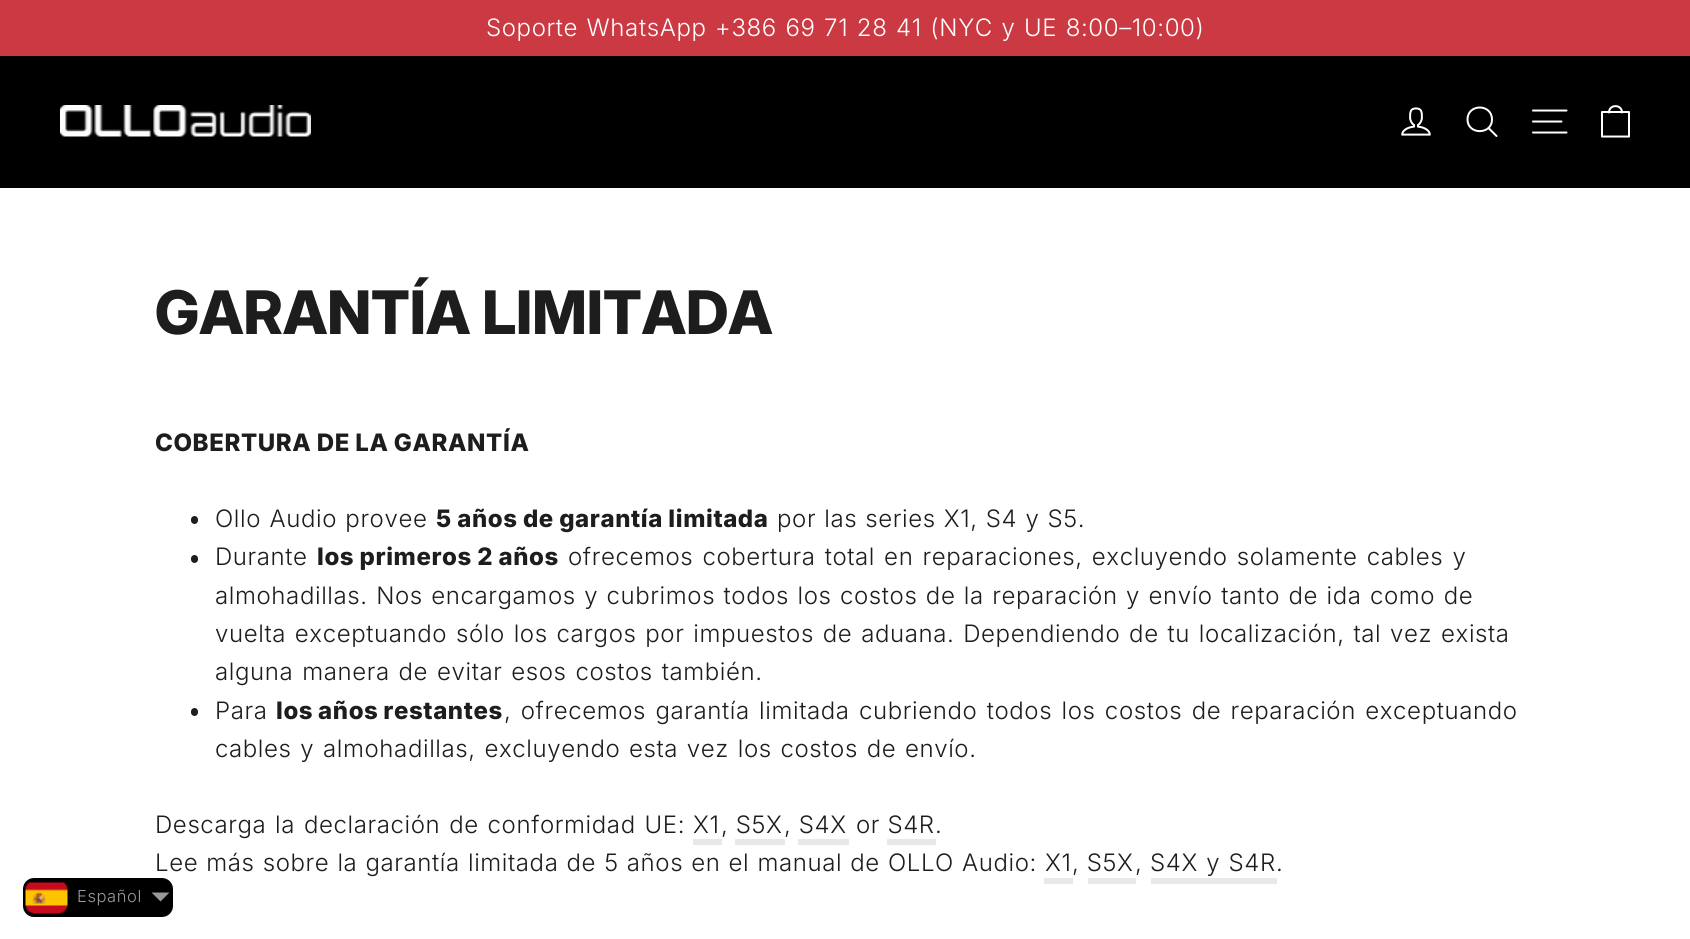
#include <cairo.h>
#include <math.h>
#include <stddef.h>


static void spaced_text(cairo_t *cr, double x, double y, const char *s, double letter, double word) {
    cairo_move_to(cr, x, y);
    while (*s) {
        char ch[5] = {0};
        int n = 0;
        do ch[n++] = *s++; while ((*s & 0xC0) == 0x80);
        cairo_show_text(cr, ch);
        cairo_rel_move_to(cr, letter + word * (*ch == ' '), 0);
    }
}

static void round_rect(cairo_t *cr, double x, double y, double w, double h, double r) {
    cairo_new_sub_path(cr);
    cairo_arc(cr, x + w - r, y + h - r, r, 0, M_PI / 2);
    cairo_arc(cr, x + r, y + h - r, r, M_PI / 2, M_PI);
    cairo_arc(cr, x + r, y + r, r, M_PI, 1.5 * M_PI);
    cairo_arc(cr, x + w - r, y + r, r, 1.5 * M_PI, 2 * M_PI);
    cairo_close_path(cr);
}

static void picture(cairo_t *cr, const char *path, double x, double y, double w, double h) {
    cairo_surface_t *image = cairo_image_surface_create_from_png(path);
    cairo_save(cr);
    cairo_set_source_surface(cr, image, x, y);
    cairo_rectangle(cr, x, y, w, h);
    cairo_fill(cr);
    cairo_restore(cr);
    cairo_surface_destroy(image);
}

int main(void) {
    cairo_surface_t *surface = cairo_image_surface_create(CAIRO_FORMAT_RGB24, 1690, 939);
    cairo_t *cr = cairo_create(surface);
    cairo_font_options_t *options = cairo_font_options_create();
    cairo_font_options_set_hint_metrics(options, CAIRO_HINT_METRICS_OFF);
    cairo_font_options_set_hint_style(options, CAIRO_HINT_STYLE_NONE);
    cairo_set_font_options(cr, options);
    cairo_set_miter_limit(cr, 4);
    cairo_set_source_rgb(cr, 1, 1, 1);
    cairo_paint(cr);
    cairo_set_source_rgb(cr, 0.796, 0.224, 0.263);
    cairo_rectangle(cr, 0, 0, 1690, 56);
    cairo_fill(cr);
    cairo_select_font_face(cr, "Inter Light", CAIRO_FONT_SLANT_NORMAL, CAIRO_FONT_WEIGHT_NORMAL);
    cairo_set_font_size(cr, 24);
    cairo_set_source_rgb(cr, 1, 1, 1);
    spaced_text(cr, 486, 36, "Soporte WhatsApp +386 69 71 28 41 (NYC y UE 8:00–10:00)", 0.6, 1.25);
    cairo_set_source_rgb(cr, 0, 0, 0);
    cairo_rectangle(cr, 0, 56, 1690, 132);
    cairo_fill(cr);
    picture(cr, "img1.png", 60, 105, 251, 32);
    picture(cr, "img2.png", 1401, 107, 30, 29);
    cairo_new_path(cr);
    cairo_move_to(cr, 1492, 119.5);
    cairo_curve_to(cr, 1492, 135, 1467.5, 135, 1467.5, 119.5);
    cairo_curve_to(cr, 1467.5, 103.5, 1492, 103.5, 1492, 119.5);
    cairo_close_path(cr);
    cairo_move_to(cr, 1496.5, 136);
    cairo_line_to(cr, 1488.5, 128);
    cairo_set_source_rgb(cr, 1, 1, 1);
    cairo_set_line_cap(cr, CAIRO_LINE_CAP_ROUND);
    cairo_set_line_join(cr, CAIRO_LINE_JOIN_ROUND);
    cairo_stroke(cr);
    cairo_new_path(cr);
    cairo_move_to(cr, 1533, 110.5);
    cairo_line_to(cr, 1566.5, 110.5);
    cairo_move_to(cr, 1533, 121.5);
    cairo_line_to(cr, 1561.5, 121.5);
    cairo_move_to(cr, 1533, 132.5);
    cairo_line_to(cr, 1566.5, 132.5);
    cairo_stroke(cr);
    cairo_new_path(cr);
    cairo_move_to(cr, 1602, 112);
    cairo_line_to(cr, 1629, 112);
    cairo_line_to(cr, 1629, 136.5);
    cairo_line_to(cr, 1602, 136.5);
    cairo_close_path(cr);
    cairo_move_to(cr, 1609, 112.5);
    cairo_curve_to(cr, 1609, 104, 1622, 104, 1622, 112.5);
    cairo_stroke(cr);
    cairo_select_font_face(cr, "Inter ExtraBold", CAIRO_FONT_SLANT_NORMAL, CAIRO_FONT_WEIGHT_NORMAL);
    cairo_set_font_size(cr, 60);
    cairo_set_source_rgb(cr, 0.114, 0.114, 0.114);
    cairo_move_to(cr, 155, 334);
    cairo_show_text(cr, "GARANTÍA LIMITADA");
    cairo_select_font_face(cr, "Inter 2 ExtraBold", CAIRO_FONT_SLANT_NORMAL, CAIRO_FONT_WEIGHT_NORMAL);
    cairo_set_font_size(cr, 24);
    spaced_text(cr, 155, 451, "COBERTURA DE LA GARANTÍA", 0.6, -0.5);
    round_rect(cr, 191, 516, 7, 8, 3.5);
    cairo_fill(cr);
    cairo_select_font_face(cr, "Inter Light", CAIRO_FONT_SLANT_NORMAL, CAIRO_FONT_WEIGHT_NORMAL);
    spaced_text(cr, 215, 527, "Ollo Audio provee", 0.6, 1);
    cairo_select_font_face(cr, "Inter 2 ExtraBold", CAIRO_FONT_SLANT_NORMAL, CAIRO_FONT_WEIGHT_NORMAL);
    spaced_text(cr, 436, 527, "5 años de garantía limitada", 0.6, -0.5);
    cairo_select_font_face(cr, "Inter Light", CAIRO_FONT_SLANT_NORMAL, CAIRO_FONT_WEIGHT_NORMAL);
    spaced_text(cr, 777, 527, "por las series X1, S4 y S5.", 0.6, 0.75);
    round_rect(cr, 191, 555, 7, 8, 3.5);
    cairo_fill(cr);
    spaced_text(cr, 215, 565, "Durante", 0.6, 0);
    cairo_select_font_face(cr, "Inter 2 ExtraBold", CAIRO_FONT_SLANT_NORMAL, CAIRO_FONT_WEIGHT_NORMAL);
    spaced_text(cr, 317, 565, "los primeros 2 años", 0.6, -0.5);
    cairo_select_font_face(cr, "Inter Light", CAIRO_FONT_SLANT_NORMAL, CAIRO_FONT_WEIGHT_NORMAL);
    spaced_text(cr, 568, 565, "ofrecemos cobertura total en reparaciones, excluyendo solamente cables y", 0.6, 1.75);
    spaced_text(cr, 215, 604, "almohadillas. Nos encargamos y cubrimos todos los costos de la reparación y envío tanto de ida como de", 0.6, 1.1);
    spaced_text(cr, 215, 642, "vuelta exceptuando sólo los cargos por impuestos de aduana. Dependiendo de tu localización, tal vez exista", 0.6, 1.5);
    spaced_text(cr, 215, 680, "alguna manera de evitar esos costos también.", 0.6, 1.5);
    round_rect(cr, 191, 708, 7, 8, 3.5);
    cairo_fill(cr);
    spaced_text(cr, 215, 719, "Para", 0.6, 0);
    cairo_select_font_face(cr, "Inter 2 ExtraBold", CAIRO_FONT_SLANT_NORMAL, CAIRO_FONT_WEIGHT_NORMAL);
    spaced_text(cr, 276, 719, "los años restantes", 0.6, -1);
    cairo_select_font_face(cr, "Inter Light", CAIRO_FONT_SLANT_NORMAL, CAIRO_FONT_WEIGHT_NORMAL);
    spaced_text(cr, 504, 719, ", ofrecemos garantía limitada cubriendo todos los costos de reparación exceptuando", 0.6, 2);
    spaced_text(cr, 215, 757, "cables y almohadillas, excluyendo esta vez los costos de envío.", 0.6, 1.4);
    spaced_text(cr, 155, 833, "Descarga la declaración de conformidad UE:", 0.6, 1.5);
    spaced_text(cr, 693, 833, "X1", 0.6, 0);
    spaced_text(cr, 721, 833, ", S5X", 0.6, 0);
    cairo_set_source_rgb(cr, 0.91, 0.91, 0.91);
    cairo_rectangle(cr, 693, 839, 29, 6);
    cairo_fill(cr);
    cairo_rectangle(cr, 735, 839, 50, 6);
    cairo_fill(cr);
    cairo_set_source_rgb(cr, 0.114, 0.114, 0.114);
    spaced_text(cr, 784, 833, ", S4X", 0.6, 0);
    cairo_set_source_rgb(cr, 0.91, 0.91, 0.91);
    cairo_rectangle(cr, 798, 839, 51, 6);
    cairo_fill(cr);
    cairo_set_source_rgb(cr, 0.114, 0.114, 0.114);
    spaced_text(cr, 856, 833, "or S4R", 0.6, 0);
    spaced_text(cr, 935, 833, ".", 0.6, 0);
    cairo_set_source_rgb(cr, 0.91, 0.91, 0.91);
    cairo_rectangle(cr, 887, 839, 49, 6);
    cairo_fill(cr);
    cairo_set_source_rgb(cr, 0.114, 0.114, 0.114);
    spaced_text(cr, 155, 871, "Lee más sobre la garantía limitada de 5 años en el manual de OLLO Audio:", 0.6, 0.75);
    spaced_text(cr, 1045, 871, "X1", 0.6, 0);
    spaced_text(cr, 1072, 871, ", S5X", 0.6, 0);
    cairo_set_source_rgb(cr, 0.91, 0.91, 0.91);
    cairo_rectangle(cr, 1044, 878, 29, 6);
    cairo_fill(cr);
    cairo_set_source_rgb(cr, 0.114, 0.114, 0.114);
    spaced_text(cr, 1135, 871, ",", 0.6, 0);
    cairo_set_source_rgb(cr, 0.91, 0.91, 0.91);
    cairo_rectangle(cr, 1088, 878, 48, 6);
    cairo_fill(cr);
    cairo_set_source_rgb(cr, 0.114, 0.114, 0.114);
    spaced_text(cr, 1150, 871, "S4X y S4R", 0.6, 1);
    spaced_text(cr, 1276, 871, ".", 0.6, 0);
    cairo_set_source_rgb(cr, 0.91, 0.91, 0.91);
    cairo_rectangle(cr, 1151, 878, 126, 6);
    cairo_fill(cr);
    cairo_set_source_rgb(cr, 0, 0, 0);
    round_rect(cr, 23, 878, 150, 39, 11);
    cairo_fill(cr);
    picture(cr, "img3.png", 25, 882, 43, 32);
    cairo_set_font_size(cr, 16.5);
    cairo_set_source_rgb(cr, 0.6, 0.6, 0.6);
    spaced_text(cr, 77, 902, "Español", 0.6, 0);
    cairo_new_path(cr);
    cairo_move_to(cr, 151.5, 892.5);
    cairo_line_to(cr, 169.5, 892.5);
    cairo_line_to(cr, 160.5, 901.5);
    cairo_close_path(cr);
    cairo_fill(cr);
    cairo_surface_write_to_png(surface, "page.png");
    cairo_font_options_destroy(options);
    cairo_destroy(cr);
    cairo_surface_destroy(surface);
    return 0;
}
